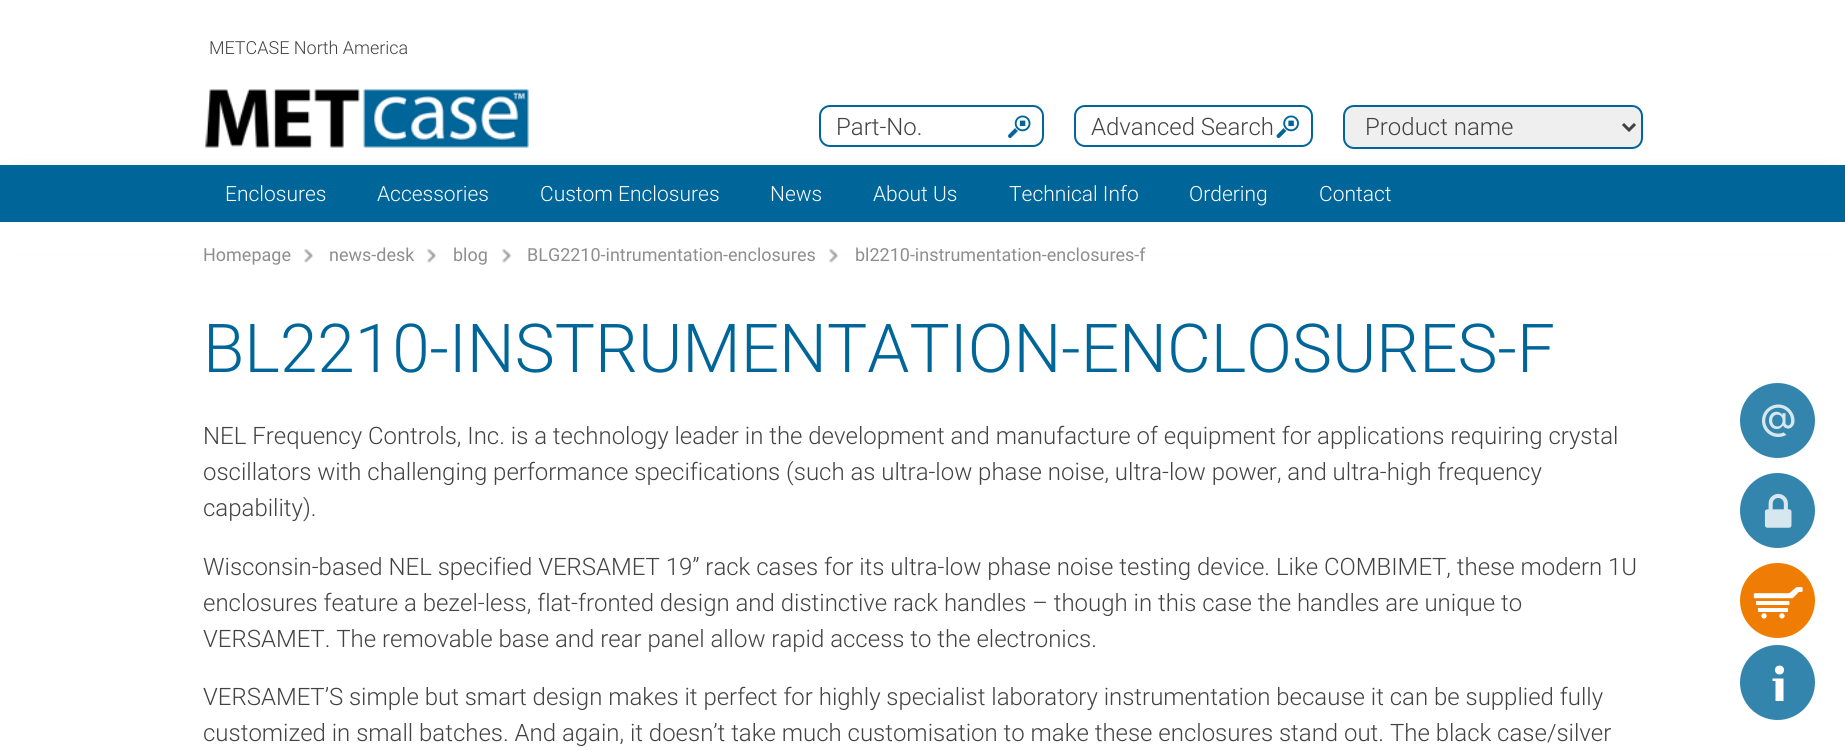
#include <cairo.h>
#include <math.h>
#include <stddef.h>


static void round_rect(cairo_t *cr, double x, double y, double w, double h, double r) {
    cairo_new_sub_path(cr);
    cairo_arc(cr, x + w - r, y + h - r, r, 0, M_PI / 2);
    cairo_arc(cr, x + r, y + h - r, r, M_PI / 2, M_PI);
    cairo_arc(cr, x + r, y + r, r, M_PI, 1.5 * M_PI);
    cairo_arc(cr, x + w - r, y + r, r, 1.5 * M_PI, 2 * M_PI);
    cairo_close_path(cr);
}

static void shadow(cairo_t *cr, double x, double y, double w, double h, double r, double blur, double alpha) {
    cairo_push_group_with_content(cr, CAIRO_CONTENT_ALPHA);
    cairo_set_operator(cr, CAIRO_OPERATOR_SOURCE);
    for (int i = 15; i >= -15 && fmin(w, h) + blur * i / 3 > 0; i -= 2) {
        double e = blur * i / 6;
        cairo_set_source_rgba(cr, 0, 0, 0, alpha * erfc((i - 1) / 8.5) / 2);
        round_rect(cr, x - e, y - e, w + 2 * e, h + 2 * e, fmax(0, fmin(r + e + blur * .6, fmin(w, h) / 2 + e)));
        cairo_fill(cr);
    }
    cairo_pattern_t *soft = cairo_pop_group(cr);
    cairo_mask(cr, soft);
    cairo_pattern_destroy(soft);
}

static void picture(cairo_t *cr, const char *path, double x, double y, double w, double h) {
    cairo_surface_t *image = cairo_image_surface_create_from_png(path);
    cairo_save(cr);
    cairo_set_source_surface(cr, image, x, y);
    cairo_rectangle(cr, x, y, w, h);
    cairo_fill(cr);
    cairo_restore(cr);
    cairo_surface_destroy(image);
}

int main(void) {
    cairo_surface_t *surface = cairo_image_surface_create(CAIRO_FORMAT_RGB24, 1845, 750);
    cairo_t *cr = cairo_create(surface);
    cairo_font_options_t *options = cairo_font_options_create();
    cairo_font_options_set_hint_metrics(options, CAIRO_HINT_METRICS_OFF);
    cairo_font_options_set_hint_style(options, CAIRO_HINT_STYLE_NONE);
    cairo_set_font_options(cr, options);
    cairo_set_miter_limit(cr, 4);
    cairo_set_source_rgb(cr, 1, 1, 1);
    cairo_paint(cr);
    cairo_select_font_face(cr, "Roboto Light", CAIRO_FONT_SLANT_NORMAL, CAIRO_FONT_WEIGHT_NORMAL);
    cairo_set_font_size(cr, 18);
    cairo_set_source_rgb(cr, 0.259, 0.259, 0.259);
    cairo_move_to(cr, 209, 54);
    cairo_show_text(cr, "METCASE North America");
    cairo_set_source_rgb(cr, 0, 0, 0);
    shadow(cr, 18, 195, 1809, 21, 0, 16.5, 0.75);
    picture(cr, "img1.png", 205, 89, 324, 59);
    picture(cr, "img2.png", 1008, 115, 23, 23);
    round_rect(cr, 820, 106, 223, 40, 10);
    cairo_set_source_rgb(cr, 0, 0.4, 0.6);
    cairo_stroke(cr);
    cairo_set_font_size(cr, 24);
    cairo_set_source_rgb(cr, 0.259, 0.259, 0.259);
    cairo_move_to(cr, 836, 135);
    cairo_show_text(cr, "Part-No.");
    picture(cr, "img3.png", 1276, 115, 23, 23);
    round_rect(cr, 1075, 106, 237, 40, 10);
    cairo_set_source_rgb(cr, 0, 0.4, 0.6);
    cairo_stroke(cr);
    cairo_set_source_rgb(cr, 0.259, 0.259, 0.259);
    cairo_move_to(cr, 1091, 135);
    cairo_show_text(cr, "Advanced Search");
    cairo_set_source_rgb(cr, 0.937, 0.937, 0.937);
    round_rect(cr, 1344, 106, 298, 42, 10);
    cairo_fill_preserve(cr);
    cairo_set_source_rgb(cr, 0, 0.4, 0.6);
    cairo_stroke(cr);
    cairo_new_path(cr);
    cairo_move_to(cr, 1623, 124);
    cairo_line_to(cr, 1629, 130);
    cairo_line_to(cr, 1635, 124);
    cairo_set_source_rgb(cr, 0.259, 0.259, 0.259);
    cairo_set_line_width(cr, 3);
    cairo_stroke(cr);
    cairo_move_to(cr, 1365, 135);
    cairo_show_text(cr, "Product name");
    cairo_set_source_rgb(cr, 0, 0.4, 0.6);
    cairo_rectangle(cr, 0, 165, 1845, 57);
    cairo_fill(cr);
    cairo_set_font_size(cr, 21);
    cairo_set_source_rgb(cr, 1, 1, 1);
    cairo_move_to(cr, 225, 201);
    cairo_show_text(cr, "Enclosures");
    cairo_move_to(cr, 377, 201);
    cairo_show_text(cr, "Accessories");
    cairo_move_to(cr, 540, 201);
    cairo_show_text(cr, "Custom Enclosures");
    cairo_move_to(cr, 770, 201);
    cairo_show_text(cr, "News");
    cairo_move_to(cr, 873, 201);
    cairo_show_text(cr, "About Us");
    cairo_move_to(cr, 1009, 201);
    cairo_show_text(cr, "Technical Info");
    cairo_move_to(cr, 1189, 201);
    cairo_show_text(cr, "Ordering");
    cairo_move_to(cr, 1319, 201);
    cairo_show_text(cr, "Contact");
    cairo_rectangle(cr, 0, 222, 1845, 30);
    cairo_fill(cr);
    picture(cr, "img4.png", 304, 249, 10, 14);
    cairo_select_font_face(cr, "Roboto", CAIRO_FONT_SLANT_NORMAL, CAIRO_FONT_WEIGHT_NORMAL);
    cairo_set_font_size(cr, 18);
    cairo_set_source_rgb(cr, 0.557, 0.557, 0.557);
    cairo_move_to(cr, 203, 261);
    cairo_show_text(cr, "Homepage");
    picture(cr, "img5.png", 427, 249, 10, 14);
    cairo_move_to(cr, 329, 261);
    cairo_show_text(cr, "news-desk");
    picture(cr, "img4.png", 502, 249, 10, 14);
    cairo_move_to(cr, 453, 261);
    cairo_show_text(cr, "blog");
    picture(cr, "img4.png", 829, 249, 10, 14);
    cairo_move_to(cr, 527, 261);
    cairo_show_text(cr, "BLG2210-intrumentation-enclosures");
    cairo_move_to(cr, 855, 261);
    cairo_show_text(cr, "bl2210-instrumentation-enclosures-f");
    cairo_select_font_face(cr, "Roboto Light", CAIRO_FONT_SLANT_NORMAL, CAIRO_FONT_WEIGHT_NORMAL);
    cairo_set_font_size(cr, 67.5);
    cairo_set_source_rgb(cr, 0, 0.4, 0.6);
    cairo_move_to(cr, 203, 372);
    cairo_show_text(cr, "BL2210-INSTRUMENTATION-ENCLOSURES-F");
    cairo_set_font_size(cr, 24);
    cairo_set_source_rgb(cr, 0.259, 0.259, 0.259);
    cairo_move_to(cr, 203, 444);
    cairo_show_text(cr, "NEL Frequency Controls, Inc. is a technology leader in the development and manufacture of equipment for applications requiring crystal");
    cairo_move_to(cr, 203, 480);
    cairo_show_text(cr, "oscillators with challenging performance specifications (such as ultra-low phase noise, ultra-low power, and ultra-high frequency");
    cairo_move_to(cr, 203, 516);
    cairo_show_text(cr, "capability).");
    cairo_move_to(cr, 203, 575);
    cairo_show_text(cr, "Wisconsin-based NEL specified VERSAMET 19” rack cases for its ultra-low phase noise testing device. Like COMBIMET, these modern 1U");
    cairo_move_to(cr, 203, 611);
    cairo_show_text(cr, "enclosures feature a bezel-less, flat-fronted design and distinctive rack handles – though in this case the handles are unique to");
    cairo_move_to(cr, 203, 647);
    cairo_show_text(cr, "VERSAMET. The removable base and rear panel allow rapid access to the electronics.");
    cairo_move_to(cr, 203, 705);
    cairo_show_text(cr, "VERSAMET’S simple but smart design makes it perfect for highly specialist laboratory instrumentation because it can be supplied fully");
    cairo_move_to(cr, 203, 741);
    cairo_show_text(cr, "customized in small batches. And again, it doesn’t take much customisation to make these enclosures stand out. The black case/silver");
    cairo_set_source_rgb(cr, 0.2, 0.522, 0.678);
    cairo_new_path(cr);
    cairo_arc(cr, 1777.5, 420.5, 37.5, 0, 2 * M_PI);
    cairo_fill(cr);
    picture(cr, "img6.png", 1762, 404, 33, 33);
    cairo_arc(cr, 1777.5, 510.5, 37.5, 0, 2 * M_PI);
    cairo_fill(cr);
    picture(cr, "img7.png", 1764, 493, 28, 35);
    cairo_set_source_rgb(cr, 0.937, 0.49, 0);
    cairo_arc(cr, 1777.5, 600.5, 37.5, 0, 2 * M_PI);
    cairo_fill(cr);
    picture(cr, "img8.png", 1745, 567, 65, 66);
    cairo_set_source_rgb(cr, 0.2, 0.522, 0.678);
    cairo_arc(cr, 1777.5, 682.5, 37.5, 0, 2 * M_PI);
    cairo_fill(cr);
    cairo_set_source_rgb(cr, 1, 1, 1);
    cairo_new_path(cr);
    cairo_move_to(cr, 1775.5, 678.5);
    cairo_line_to(cr, 1772.5, 678.5);
    cairo_line_to(cr, 1772.5, 681);
    cairo_line_to(cr, 1775.5, 681);
    cairo_line_to(cr, 1775.5, 701);
    cairo_line_to(cr, 1783.5, 701);
    cairo_line_to(cr, 1783.5, 678.5);
    cairo_close_path(cr);
    cairo_fill(cr);
    cairo_arc(cr, 1779.5, 670, 4.5, 0, 2 * M_PI);
    cairo_fill(cr);
    cairo_surface_write_to_png(surface, "page.png");
    cairo_font_options_destroy(options);
    cairo_destroy(cr);
    cairo_surface_destroy(surface);
    return 0;
}
